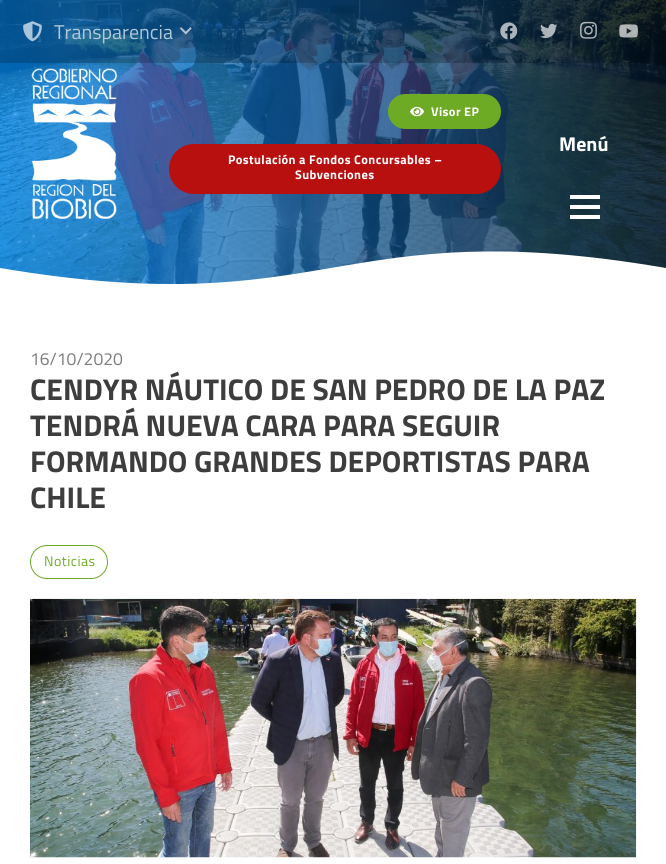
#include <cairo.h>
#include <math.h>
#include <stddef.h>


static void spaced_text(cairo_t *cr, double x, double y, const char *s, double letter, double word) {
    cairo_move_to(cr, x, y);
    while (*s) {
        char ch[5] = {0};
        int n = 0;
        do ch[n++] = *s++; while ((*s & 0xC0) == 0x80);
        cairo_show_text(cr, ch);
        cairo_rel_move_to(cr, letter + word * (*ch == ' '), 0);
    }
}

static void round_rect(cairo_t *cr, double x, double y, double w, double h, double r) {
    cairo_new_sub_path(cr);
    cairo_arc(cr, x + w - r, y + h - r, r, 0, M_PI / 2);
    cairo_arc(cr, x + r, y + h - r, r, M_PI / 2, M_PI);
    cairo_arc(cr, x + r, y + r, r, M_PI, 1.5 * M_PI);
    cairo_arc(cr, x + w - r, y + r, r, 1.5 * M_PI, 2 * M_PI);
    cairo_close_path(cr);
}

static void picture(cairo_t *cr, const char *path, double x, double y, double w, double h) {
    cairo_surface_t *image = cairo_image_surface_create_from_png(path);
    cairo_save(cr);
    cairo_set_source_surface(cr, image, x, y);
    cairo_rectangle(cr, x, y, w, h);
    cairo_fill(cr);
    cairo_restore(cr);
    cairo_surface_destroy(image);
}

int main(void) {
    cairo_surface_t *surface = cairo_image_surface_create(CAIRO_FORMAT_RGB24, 666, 864);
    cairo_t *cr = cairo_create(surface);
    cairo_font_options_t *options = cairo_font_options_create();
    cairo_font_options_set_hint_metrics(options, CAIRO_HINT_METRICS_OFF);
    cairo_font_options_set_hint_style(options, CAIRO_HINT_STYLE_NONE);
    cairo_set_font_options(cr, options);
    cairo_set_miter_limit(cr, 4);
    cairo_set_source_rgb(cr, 1, 1, 1);
    cairo_paint(cr);
    picture(cr, "img9.png", 0, 0, 666, 284);
    cairo_set_source_rgba(cr, 0, 0, 0, 0.2);
    cairo_rectangle(cr, 0, 0, 666, 63);
    cairo_fill(cr);
    picture(cr, "img1.png", 23, 21, 19, 21);
    cairo_select_font_face(cr, "Titillium Web", CAIRO_FONT_SLANT_NORMAL, CAIRO_FONT_WEIGHT_NORMAL);
    cairo_set_font_size(cr, 20);
    cairo_set_source_rgb(cr, 0.69, 0.78, 0.843);
    cairo_move_to(cr, 54, 39);
    cairo_show_text(cr, "Transparencia");
    picture(cr, "img2.png", 179, 27, 13, 8);
    picture(cr, "img3.png", 500, 22, 18, 18);
    picture(cr, "img4.png", 540, 23, 18, 15);
    picture(cr, "img5.png", 580, 21, 17, 18);
    picture(cr, "img6.png", 619, 24, 19, 14);
    picture(cr, "img7.png", 31, 68, 87, 151);
    cairo_set_source_rgb(cr, 0.427, 0.671, 0.141);
    round_rect(cr, 388, 94, 113, 35, 17.5);
    cairo_fill(cr);
    picture(cr, "img8.png", 410, 106, 14, 11);
    cairo_select_font_face(cr, "Titillium Web", CAIRO_FONT_SLANT_NORMAL, CAIRO_FONT_WEIGHT_BOLD);
    cairo_set_font_size(cr, 12.5);
    cairo_set_source_rgb(cr, 1, 1, 1);
    spaced_text(cr, 431, 116, "Visor EP", 0.4, 0);
    cairo_set_source_rgb(cr, 0.722, 0.059, 0.059);
    round_rect(cr, 169, 144, 332, 50, 25);
    cairo_fill(cr);
    cairo_set_source_rgb(cr, 1, 1, 1);
    spaced_text(cr, 228, 164, "Postulación a Fondos Concursables –", 0.4, 0);
    spaced_text(cr, 295, 179, "Subvenciones", 0.4, 0);
    cairo_set_font_size(cr, 20);
    cairo_move_to(cr, 559, 151);
    cairo_show_text(cr, "Menú");
    cairo_rectangle(cr, 570, 205, 30, 4);
    cairo_fill(cr);
    cairo_rectangle(cr, 570, 195, 30, 4);
    cairo_fill(cr);
    cairo_rectangle(cr, 570, 215, 30, 4);
    cairo_fill(cr);
    cairo_new_path(cr);
    cairo_move_to(cr, 666, 268);
    cairo_curve_to(cr, 333, 211, 333, 324, 0, 268);
    cairo_line_to(cr, 0, 286);
    cairo_line_to(cr, 666, 286);
    cairo_close_path(cr);
    cairo_fill(cr);
    cairo_select_font_face(cr, "Titillium Web", CAIRO_FONT_SLANT_NORMAL, CAIRO_FONT_WEIGHT_NORMAL);
    cairo_set_font_size(cr, 17.5);
    cairo_set_source_rgb(cr, 0.49, 0.49, 0.49);
    cairo_move_to(cr, 30, 365);
    cairo_show_text(cr, "16/10/2020");
    cairo_select_font_face(cr, "Titillium Web", CAIRO_FONT_SLANT_NORMAL, CAIRO_FONT_WEIGHT_BOLD);
    cairo_set_font_size(cr, 30);
    cairo_set_source_rgb(cr, 0.239, 0.239, 0.239);
    cairo_move_to(cr, 30, 400);
    cairo_show_text(cr, "CENDYR NÁUTICO DE SAN PEDRO DE LA PAZ");
    cairo_move_to(cr, 30, 436);
    cairo_show_text(cr, "TENDRÁ NUEVA CARA PARA SEGUIR");
    cairo_move_to(cr, 30, 472);
    cairo_show_text(cr, "FORMANDO GRANDES DEPORTISTAS PARA");
    cairo_move_to(cr, 30, 508);
    cairo_show_text(cr, "CHILE");
    round_rect(cr, 30.5, 545.5, 77, 33, 16.5);
    cairo_set_source_rgb(cr, 0.427, 0.671, 0.141);
    cairo_set_line_width(cr, 1);
    cairo_stroke(cr);
    cairo_select_font_face(cr, "Titillium Web", CAIRO_FONT_SLANT_NORMAL, CAIRO_FONT_WEIGHT_NORMAL);
    cairo_set_font_size(cr, 14);
    spaced_text(cr, 44, 566, "Noticias", 0.5, 0);
    picture(cr, "img10.png", 30, 598, 607, 260);
    cairo_surface_write_to_png(surface, "page.png");
    cairo_font_options_destroy(options);
    cairo_destroy(cr);
    cairo_surface_destroy(surface);
    return 0;
}
